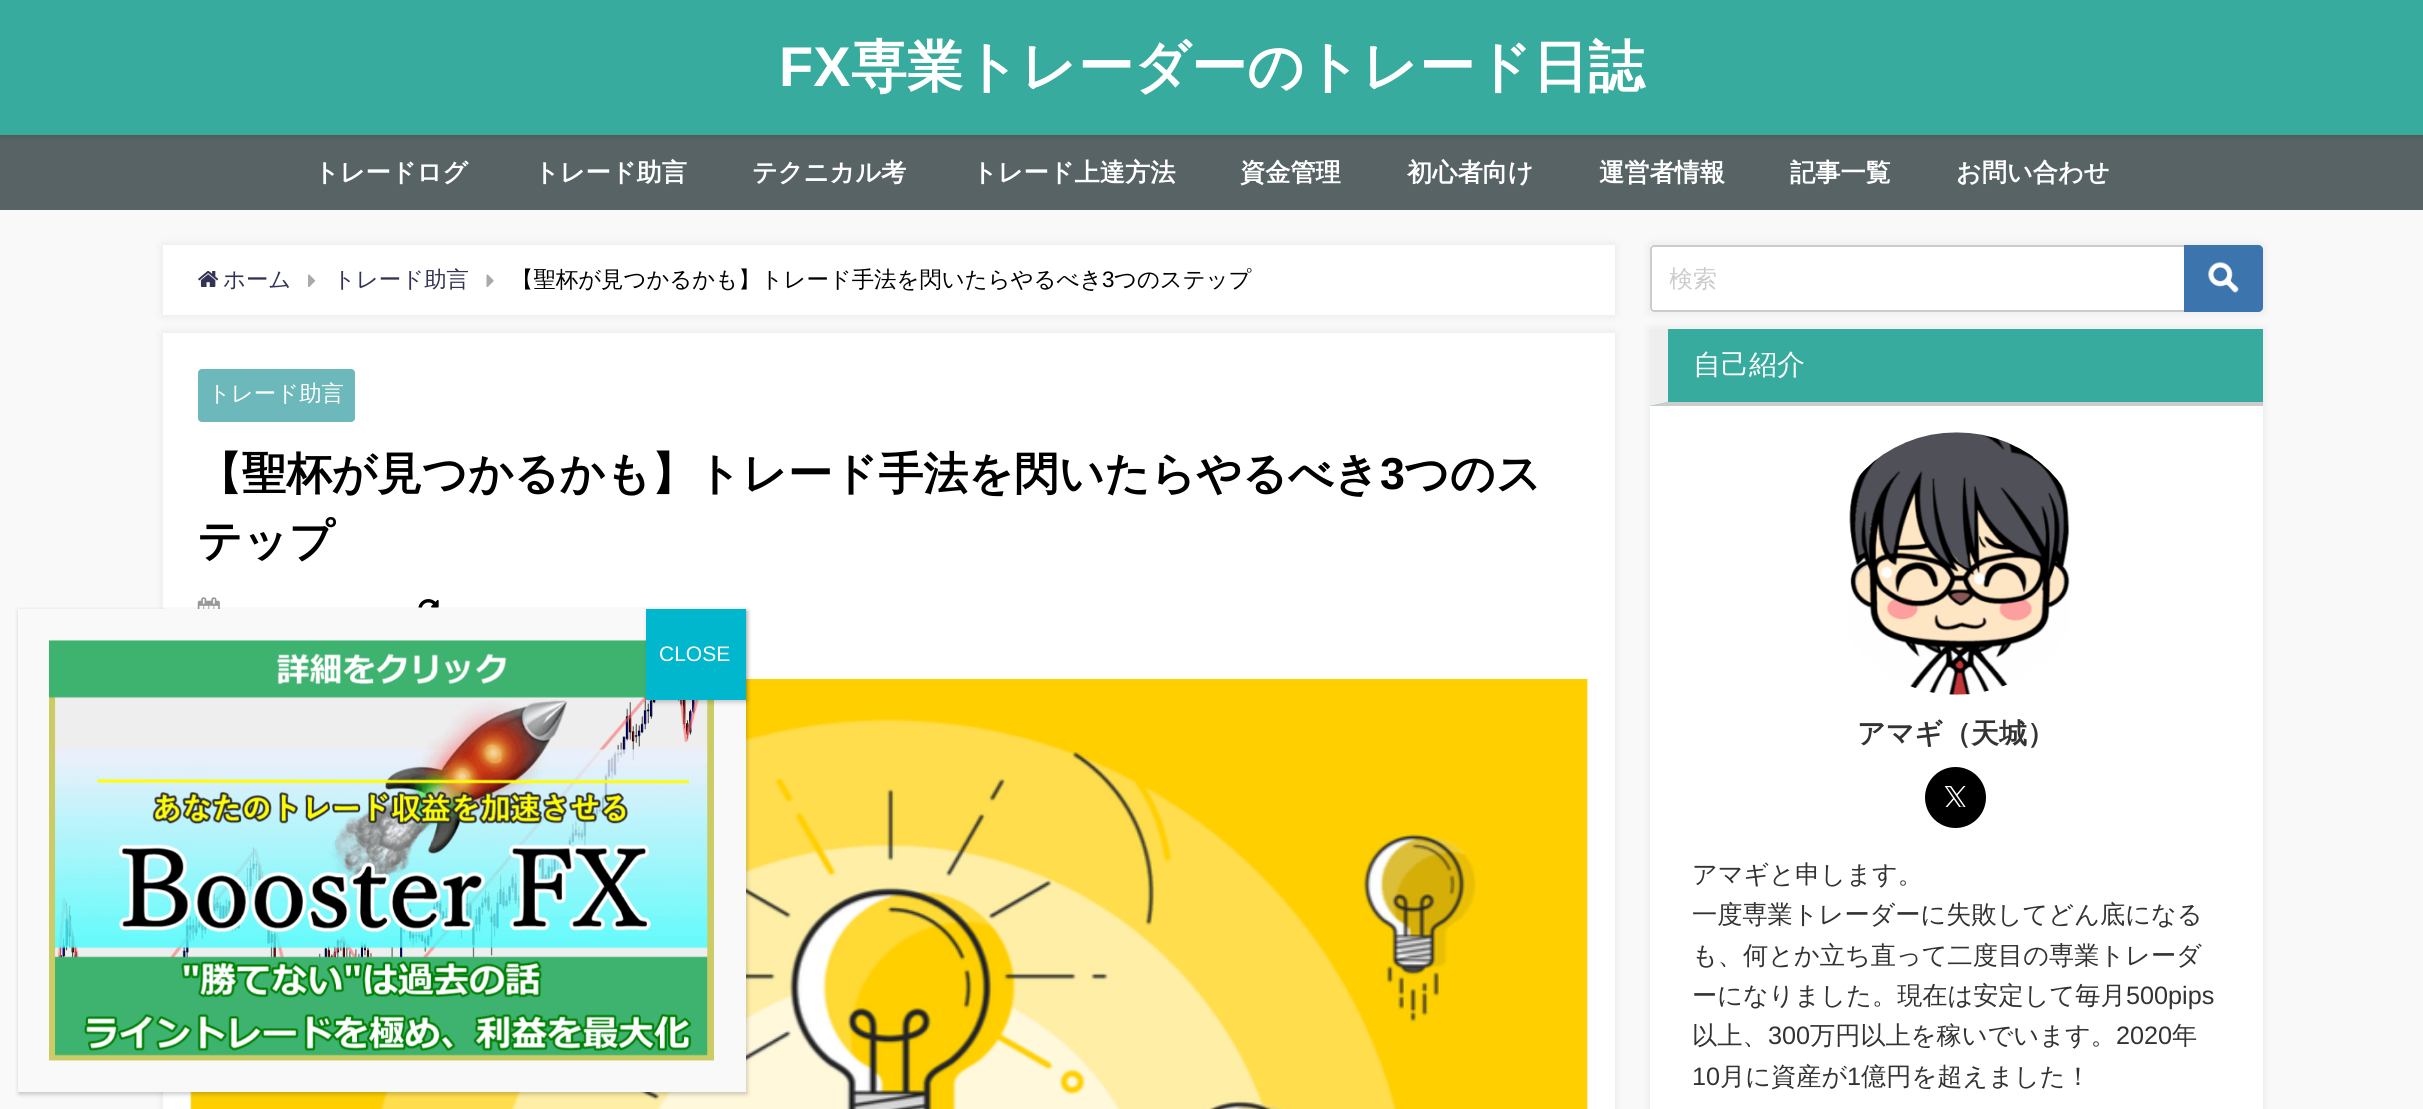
#include <cairo.h>
#include <math.h>
#include <stddef.h>


static void round_rect(cairo_t *cr, double x, double y, double w, double h, double r) {
    cairo_new_sub_path(cr);
    cairo_arc(cr, x + w - r, y + h - r, r, 0, M_PI / 2);
    cairo_arc(cr, x + r, y + h - r, r, M_PI / 2, M_PI);
    cairo_arc(cr, x + r, y + r, r, M_PI, 1.5 * M_PI);
    cairo_arc(cr, x + w - r, y + r, r, 1.5 * M_PI, 2 * M_PI);
    cairo_close_path(cr);
}

static void shadow(cairo_t *cr, double x, double y, double w, double h, double r, double blur, double alpha) {
    cairo_push_group_with_content(cr, CAIRO_CONTENT_ALPHA);
    cairo_set_operator(cr, CAIRO_OPERATOR_SOURCE);
    for (int i = 15; i >= -15 && fmin(w, h) + blur * i / 3 > 0; i -= 2) {
        double e = blur * i / 6;
        cairo_set_source_rgba(cr, 0, 0, 0, alpha * erfc((i - 1) / 8.5) / 2);
        round_rect(cr, x - e, y - e, w + 2 * e, h + 2 * e, fmax(0, fmin(r + e + blur * .6, fmin(w, h) / 2 + e)));
        cairo_fill(cr);
    }
    cairo_pattern_t *soft = cairo_pop_group(cr);
    cairo_mask(cr, soft);
    cairo_pattern_destroy(soft);
}

static void picture(cairo_t *cr, const char *path, double x, double y, double w, double h) {
    cairo_surface_t *image = cairo_image_surface_create_from_png(path);
    cairo_save(cr);
    cairo_set_source_surface(cr, image, x, y);
    cairo_rectangle(cr, x, y, w, h);
    cairo_fill(cr);
    cairo_restore(cr);
    cairo_surface_destroy(image);
}

int main(void) {
    cairo_surface_t *surface = cairo_image_surface_create(CAIRO_FORMAT_RGB24, 2423, 1109);
    cairo_t *cr = cairo_create(surface);
    cairo_font_options_t *options = cairo_font_options_create();
    cairo_font_options_set_hint_metrics(options, CAIRO_HINT_METRICS_OFF);
    cairo_font_options_set_hint_style(options, CAIRO_HINT_STYLE_NONE);
    cairo_set_font_options(cr, options);
    cairo_set_miter_limit(cr, 4);
    cairo_set_source_rgb(cr, 0.976, 0.976, 0.976);
    cairo_paint(cr);
    cairo_set_source_rgb(cr, 0.345, 0.388, 0.396);
    cairo_rectangle(cr, 0, 135, 2423, 75);
    cairo_fill(cr);
    cairo_set_source_rgb(cr, 0, 0, 0);
    shadow(cr, 0, 0, 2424, 135, 0, 3.5, 0.2);
    cairo_set_source_rgb(cr, 0.216, 0.671, 0.616);
    cairo_rectangle(cr, 0, 0, 2423, 135);
    cairo_fill(cr);
    cairo_select_font_face(cr, "Liberation Sans", CAIRO_FONT_SLANT_NORMAL, CAIRO_FONT_WEIGHT_BOLD);
    cairo_set_font_size(cr, 56);
    cairo_set_source_rgb(cr, 1, 1, 1);
    cairo_move_to(cr, 779, 86);
    cairo_show_text(cr, "FX");
    cairo_select_font_face(cr, "WenQuanYi Zen Hei", CAIRO_FONT_SLANT_NORMAL, CAIRO_FONT_WEIGHT_BOLD);
    cairo_move_to(cr, 851, 86);
    cairo_show_text(cr, "専業トレーダーのトレード日誌");
    cairo_set_font_size(cr, 25.2);
    cairo_move_to(cr, 314, 181);
    cairo_show_text(cr, "トレードログ");
    cairo_move_to(cr, 534, 181);
    cairo_show_text(cr, "トレード助言");
    cairo_move_to(cr, 752, 181);
    cairo_show_text(cr, "テクニカル考");
    cairo_move_to(cr, 972, 181);
    cairo_show_text(cr, "トレード上達方法");
    cairo_move_to(cr, 1240, 181);
    cairo_show_text(cr, "資金管理");
    cairo_move_to(cr, 1407, 181);
    cairo_show_text(cr, "初心者向け");
    cairo_move_to(cr, 1599, 181);
    cairo_show_text(cr, "運営者情報");
    cairo_move_to(cr, 1790, 181);
    cairo_show_text(cr, "記事一覧");
    cairo_move_to(cr, 1956, 181);
    cairo_show_text(cr, "お問い合わせ");
    cairo_set_source_rgb(cr, 0.588, 0.588, 0.588);
    shadow(cr, 163, 245, 1452, 70, 0, 4.5, 0.2);
    cairo_set_source_rgb(cr, 1, 1, 1);
    cairo_rectangle(cr, 163, 245, 1452, 70);
    cairo_fill(cr);
    picture(cr, "img1.png", 198, 271, 21, 16);
    cairo_select_font_face(cr, "WenQuanYi Zen Hei Medium", CAIRO_FONT_SLANT_NORMAL, CAIRO_FONT_WEIGHT_NORMAL);
    cairo_set_font_size(cr, 22.4);
    cairo_set_source_rgb(cr, 0.2, 0.2, 0.333);
    cairo_move_to(cr, 223, 287);
    cairo_show_text(cr, "ホーム");
    picture(cr, "img2.png", 308, 274, 8, 13);
    cairo_move_to(cr, 333, 287);
    cairo_show_text(cr, "トレード助言");
    picture(cr, "img3.png", 486, 274, 8, 14);
    cairo_set_source_rgb(cr, 0, 0, 0);
    cairo_move_to(cr, 511, 287);
    cairo_show_text(cr, "【聖杯が見つかるかも】トレード手法を閃いたらやるべき");
    cairo_select_font_face(cr, "Liberation Sans", CAIRO_FONT_SLANT_NORMAL, CAIRO_FONT_WEIGHT_NORMAL);
    cairo_move_to(cr, 1102, 287);
    cairo_show_text(cr, "3");
    cairo_select_font_face(cr, "WenQuanYi Zen Hei Medium", CAIRO_FONT_SLANT_NORMAL, CAIRO_FONT_WEIGHT_NORMAL);
    cairo_move_to(cr, 1114, 287);
    cairo_show_text(cr, "つのステップ");
    cairo_set_source_rgb(cr, 0.588, 0.588, 0.588);
    shadow(cr, 163, 333, 1452, 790, 0, 4.5, 0.2);
    cairo_set_source_rgb(cr, 1, 1, 1);
    cairo_rectangle(cr, 163, 333, 1452, 776);
    cairo_fill(cr);
    cairo_set_source_rgb(cr, 0.427, 0.722, 0.729);
    round_rect(cr, 198, 369, 157, 53, 4);
    cairo_fill(cr);
    cairo_set_source_rgb(cr, 1, 1, 1);
    cairo_move_to(cr, 208, 401);
    cairo_show_text(cr, "トレード助言");
    cairo_select_font_face(cr, "WenQuanYi Zen Hei", CAIRO_FONT_SLANT_NORMAL, CAIRO_FONT_WEIGHT_BOLD);
    cairo_set_font_size(cr, 44.8);
    cairo_set_source_rgb(cr, 0, 0, 0);
    cairo_move_to(cr, 197, 489);
    cairo_show_text(cr, "【聖杯が見つかるかも】トレード手法を閃いたらやるべき");
    cairo_select_font_face(cr, "Liberation Sans", CAIRO_FONT_SLANT_NORMAL, CAIRO_FONT_WEIGHT_BOLD);
    cairo_move_to(cr, 1380, 489);
    cairo_show_text(cr, "3");
    cairo_select_font_face(cr, "WenQuanYi Zen Hei", CAIRO_FONT_SLANT_NORMAL, CAIRO_FONT_WEIGHT_BOLD);
    cairo_move_to(cr, 1404, 489);
    cairo_show_text(cr, "つのス");
    cairo_move_to(cr, 197, 556);
    cairo_show_text(cr, "テップ");
    picture(cr, "img4.png", 197, 597, 23, 12);
    picture(cr, "img5.png", 418, 599, 21, 9);
    picture(cr, "img6.png", 190, 679, 1398, 430);
    cairo_set_source_rgb(cr, 0.588, 0.588, 0.588);
    shadow(cr, 1650, 245, 613, 67, 0, 4.5, 0.2);
    cairo_set_source_rgb(cr, 1, 1, 1);
    cairo_rectangle(cr, 1650, 245, 613, 67);
    cairo_fill(cr);
    round_rect(cr, 1651, 246, 611, 65, 3);
    cairo_set_source_rgb(cr, 0.8, 0.8, 0.8);
    cairo_stroke(cr);
    cairo_save(cr);
    cairo_rectangle(cr, 1670, 264, 504, 32);
    cairo_clip(cr);
    cairo_select_font_face(cr, "WenQuanYi Zen Hei Medium", CAIRO_FONT_SLANT_NORMAL, CAIRO_FONT_WEIGHT_NORMAL);
    cairo_set_font_size(cr, 24);
    cairo_move_to(cr, 1669, 287);
    cairo_show_text(cr, "検索");
    cairo_restore(cr);
    cairo_set_source_rgb(cr, 0.235, 0.455, 0.678);
    cairo_new_path(cr);
    cairo_move_to(cr, 2184, 245);
    cairo_line_to(cr, 2258, 245);
    cairo_curve_to(cr, 2261, 245, 2263, 247, 2263, 250);
    cairo_line_to(cr, 2263, 307);
    cairo_curve_to(cr, 2263, 310, 2261, 312, 2258, 312);
    cairo_line_to(cr, 2184, 312);
    cairo_close_path(cr);
    cairo_fill(cr);
    picture(cr, "img7.png", 2208, 262, 31, 31);
    cairo_set_source_rgb(cr, 0.588, 0.588, 0.588);
    shadow(cr, 1650, 329, 613, 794, 0, 4.5, 0.2);
    cairo_set_source_rgb(cr, 1, 1, 1);
    cairo_rectangle(cr, 1650, 406, 613, 703);
    cairo_fill(cr);
    cairo_set_source_rgb(cr, 0.216, 0.671, 0.616);
    cairo_rectangle(cr, 1650, 329, 613, 77);
    cairo_fill(cr);
    cairo_set_source_rgb(cr, 0.8, 0.8, 0.8);
    cairo_new_path(cr);
    cairo_move_to(cr, 2263, 406);
    cairo_line_to(cr, 1650, 406);
    cairo_line_to(cr, 1668, 402);
    cairo_line_to(cr, 2263, 402);
    cairo_close_path(cr);
    cairo_fill(cr);
    cairo_set_source_rgb(cr, 0.933, 0.933, 0.933);
    cairo_new_path(cr);
    cairo_move_to(cr, 1650, 406);
    cairo_line_to(cr, 1650, 329);
    cairo_line_to(cr, 1668, 329);
    cairo_line_to(cr, 1668, 402);
    cairo_close_path(cr);
    cairo_fill(cr);
    cairo_select_font_face(cr, "WenQuanYi Zen Hei Medium", CAIRO_FONT_SLANT_NORMAL, CAIRO_FONT_WEIGHT_NORMAL);
    cairo_set_font_size(cr, 28);
    cairo_set_source_rgb(cr, 1, 1, 1);
    cairo_move_to(cr, 1693, 374);
    cairo_show_text(cr, "自己紹介");
    picture(cr, "img8.png", 1849, 432, 221, 263);
    cairo_select_font_face(cr, "WenQuanYi Zen Hei", CAIRO_FONT_SLANT_NORMAL, CAIRO_FONT_WEIGHT_BOLD);
    cairo_set_source_rgb(cr, 0.2, 0.2, 0.2);
    cairo_move_to(cr, 1857, 743);
    cairo_show_text(cr, "アマギ（天城）");
    cairo_set_source_rgb(cr, 0, 0, 0);
    cairo_new_path(cr);
    cairo_arc(cr, 1955.5, 797.5, 30.5, 0, 2 * M_PI);
    cairo_fill(cr);
    picture(cr, "img9.png", 1944, 786, 22, 21);
    cairo_select_font_face(cr, "WenQuanYi Zen Hei Medium", CAIRO_FONT_SLANT_NORMAL, CAIRO_FONT_WEIGHT_NORMAL);
    cairo_set_font_size(cr, 25.2);
    cairo_set_source_rgb(cr, 0.2, 0.2, 0.2);
    cairo_move_to(cr, 1692, 883);
    cairo_show_text(cr, "アマギと申します。");
    cairo_move_to(cr, 1692, 923);
    cairo_show_text(cr, "一度専業トレーダーに失敗してどん底になる");
    cairo_move_to(cr, 1692, 964);
    cairo_show_text(cr, "も、何とか立ち直って二度目の専業トレーダ");
    cairo_move_to(cr, 1692, 1004);
    cairo_show_text(cr, "ーになりました。現在は安定して毎月");
    cairo_select_font_face(cr, "Liberation Sans", CAIRO_FONT_SLANT_NORMAL, CAIRO_FONT_WEIGHT_NORMAL);
    cairo_move_to(cr, 2126, 1004);
    cairo_show_text(cr, "500pips");
    cairo_select_font_face(cr, "WenQuanYi Zen Hei Medium", CAIRO_FONT_SLANT_NORMAL, CAIRO_FONT_WEIGHT_NORMAL);
    cairo_move_to(cr, 1692, 1044);
    cairo_show_text(cr, "以上、");
    cairo_select_font_face(cr, "Liberation Sans", CAIRO_FONT_SLANT_NORMAL, CAIRO_FONT_WEIGHT_NORMAL);
    cairo_move_to(cr, 1768, 1044);
    cairo_show_text(cr, "300");
    cairo_select_font_face(cr, "WenQuanYi Zen Hei Medium", CAIRO_FONT_SLANT_NORMAL, CAIRO_FONT_WEIGHT_NORMAL);
    cairo_move_to(cr, 1810, 1044);
    cairo_show_text(cr, "万円以上を稼いでいます。");
    cairo_select_font_face(cr, "Liberation Sans", CAIRO_FONT_SLANT_NORMAL, CAIRO_FONT_WEIGHT_NORMAL);
    cairo_move_to(cr, 2116, 1044);
    cairo_show_text(cr, "2020");
    cairo_select_font_face(cr, "WenQuanYi Zen Hei Medium", CAIRO_FONT_SLANT_NORMAL, CAIRO_FONT_WEIGHT_NORMAL);
    cairo_move_to(cr, 2172, 1044);
    cairo_show_text(cr, "年");
    cairo_select_font_face(cr, "Liberation Sans", CAIRO_FONT_SLANT_NORMAL, CAIRO_FONT_WEIGHT_NORMAL);
    cairo_move_to(cr, 1692, 1085);
    cairo_show_text(cr, "10");
    cairo_select_font_face(cr, "WenQuanYi Zen Hei Medium", CAIRO_FONT_SLANT_NORMAL, CAIRO_FONT_WEIGHT_NORMAL);
    cairo_move_to(cr, 1720, 1085);
    cairo_show_text(cr, "月に資産が");
    cairo_select_font_face(cr, "Liberation Sans", CAIRO_FONT_SLANT_NORMAL, CAIRO_FONT_WEIGHT_NORMAL);
    cairo_move_to(cr, 1847, 1085);
    cairo_show_text(cr, "1");
    cairo_select_font_face(cr, "WenQuanYi Zen Hei Medium", CAIRO_FONT_SLANT_NORMAL, CAIRO_FONT_WEIGHT_NORMAL);
    cairo_move_to(cr, 1861, 1085);
    cairo_show_text(cr, "億円を超えました！");
    cairo_set_source_rgb(cr, 0.008, 0.008, 0.008);
    shadow(cr, 19, 611, 728, 483, 0, 2.5, 0.23);
    cairo_set_source_rgb(cr, 0.976, 0.976, 0.976);
    cairo_rectangle(cr, 18, 609, 728, 483);
    cairo_fill(cr);
    picture(cr, "img10.png", 49, 640, 665, 421);
    cairo_set_source_rgb(cr, 0.008, 0.008, 0.008);
    shadow(cr, 648, 611, 99, 91, 0, 2.5, 0.23);
    cairo_set_source_rgb(cr, 0, 0.718, 0.804);
    cairo_rectangle(cr, 646, 609, 100, 91);
    cairo_fill(cr);
    cairo_select_font_face(cr, "Liberation Sans", CAIRO_FONT_SLANT_NORMAL, CAIRO_FONT_WEIGHT_NORMAL);
    cairo_set_font_size(cr, 21);
    cairo_set_source_rgb(cr, 1, 1, 1);
    cairo_move_to(cr, 659, 661);
    cairo_show_text(cr, "CLOSE");
    cairo_surface_write_to_png(surface, "page.png");
    cairo_font_options_destroy(options);
    cairo_destroy(cr);
    cairo_surface_destroy(surface);
    return 0;
}
